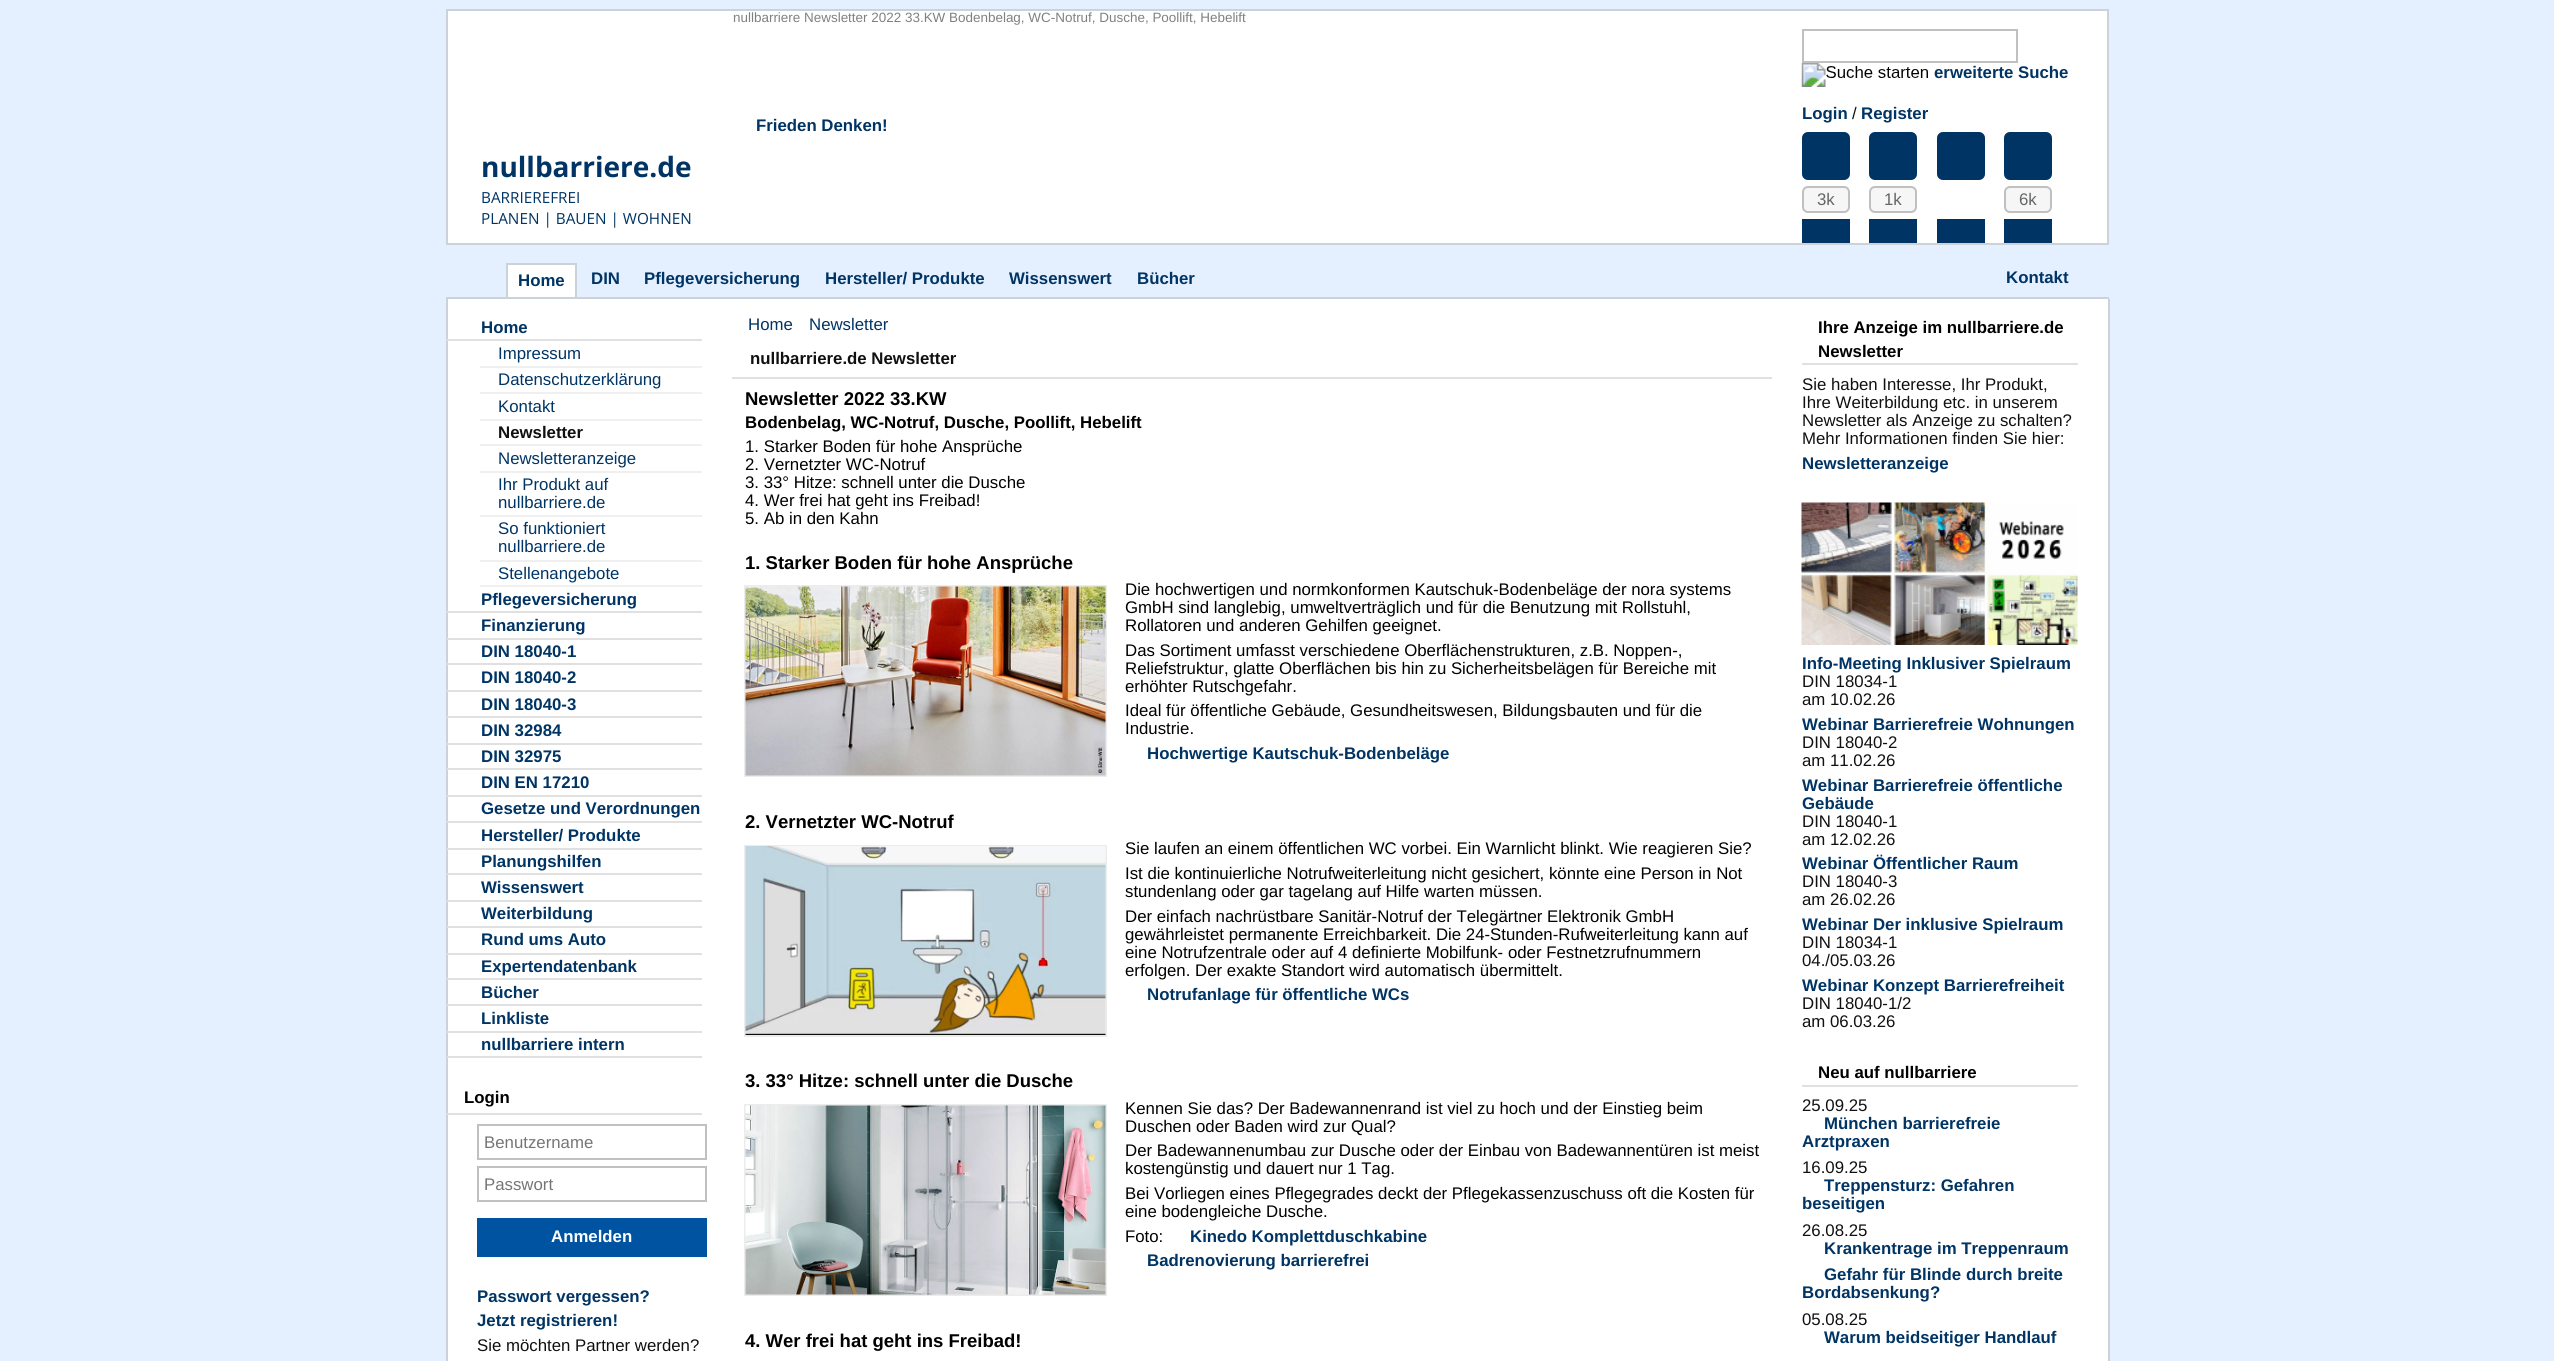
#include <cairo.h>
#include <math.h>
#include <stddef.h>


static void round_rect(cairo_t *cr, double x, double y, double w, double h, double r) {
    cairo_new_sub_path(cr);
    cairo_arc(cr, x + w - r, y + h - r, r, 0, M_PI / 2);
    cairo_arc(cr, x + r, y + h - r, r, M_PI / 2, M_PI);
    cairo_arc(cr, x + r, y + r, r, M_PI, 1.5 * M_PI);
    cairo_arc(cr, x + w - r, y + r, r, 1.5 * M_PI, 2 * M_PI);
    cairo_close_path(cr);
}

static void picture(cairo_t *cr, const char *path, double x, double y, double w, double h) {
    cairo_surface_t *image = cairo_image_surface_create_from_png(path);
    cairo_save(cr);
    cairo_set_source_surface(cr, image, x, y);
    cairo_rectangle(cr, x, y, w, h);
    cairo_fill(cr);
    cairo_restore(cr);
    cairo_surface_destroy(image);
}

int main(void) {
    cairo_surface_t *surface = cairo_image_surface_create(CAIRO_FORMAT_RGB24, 2554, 1361);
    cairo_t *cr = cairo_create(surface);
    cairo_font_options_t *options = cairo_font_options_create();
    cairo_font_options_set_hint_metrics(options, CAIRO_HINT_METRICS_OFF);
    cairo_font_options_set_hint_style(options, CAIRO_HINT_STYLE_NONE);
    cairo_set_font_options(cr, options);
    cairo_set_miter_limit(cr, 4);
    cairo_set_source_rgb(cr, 0.894, 0.937, 1);
    cairo_paint(cr);
    cairo_set_source_rgb(cr, 1, 1, 1);
    cairo_rectangle(cr, 447, 10, 1661, 234);
    cairo_fill_preserve(cr);
    cairo_set_source_rgb(cr, 0.796, 0.824, 0.847);
    cairo_stroke(cr);
    cairo_select_font_face(cr, "Liberation Sans", CAIRO_FONT_SLANT_NORMAL, CAIRO_FONT_WEIGHT_NORMAL);
    cairo_set_font_size(cr, 13.45);
    cairo_set_source_rgb(cr, 0.502, 0.502, 0.502);
    cairo_move_to(cr, 733, 22);
    cairo_show_text(cr, "nullbarriere Newsletter 2022 33.KW Bodenbelag, WC-Notruf, Dusche, Poollift, Hebelift");
    cairo_select_font_face(cr, "Liberation Sans", CAIRO_FONT_SLANT_NORMAL, CAIRO_FONT_WEIGHT_BOLD);
    cairo_set_font_size(cr, 16.8);
    cairo_set_source_rgb(cr, 0, 0.204, 0.392);
    cairo_move_to(cr, 756, 131);
    cairo_show_text(cr, "Frieden Denken!");
    cairo_rectangle(cr, 1803, 30, 214, 32);
    cairo_set_source_rgb(cr, 0.753, 0.753, 0.753);
    cairo_stroke(cr);
    picture(cr, "img1.png", 1801, 63, 127, 24);
    cairo_set_source_rgb(cr, 0, 0.204, 0.392);
    cairo_move_to(cr, 1934, 78);
    cairo_show_text(cr, "erweiterte Suche");
    cairo_move_to(cr, 1802, 119);
    cairo_show_text(cr, "Login");
    cairo_select_font_face(cr, "Liberation Sans", CAIRO_FONT_SLANT_NORMAL, CAIRO_FONT_WEIGHT_NORMAL);
    cairo_set_source_rgb(cr, 0.063, 0.063, 0.063);
    cairo_move_to(cr, 1852, 119);
    cairo_show_text(cr, "/");
    cairo_select_font_face(cr, "Liberation Sans", CAIRO_FONT_SLANT_NORMAL, CAIRO_FONT_WEIGHT_BOLD);
    cairo_set_source_rgb(cr, 0, 0.204, 0.392);
    cairo_move_to(cr, 1861, 119);
    cairo_show_text(cr, "Register");
    round_rect(cr, 1802, 132, 48, 48, 6);
    cairo_fill(cr);
    cairo_set_source_rgb(cr, 0.961, 0.961, 0.961);
    round_rect(cr, 1803, 187, 46, 25, 5);
    cairo_fill_preserve(cr);
    cairo_set_source_rgb(cr, 0.753, 0.753, 0.753);
    cairo_stroke(cr);
    cairo_select_font_face(cr, "Liberation Sans", CAIRO_FONT_SLANT_NORMAL, CAIRO_FONT_WEIGHT_NORMAL);
    cairo_set_source_rgb(cr, 0.4, 0.4, 0.4);
    cairo_move_to(cr, 1817, 205);
    cairo_show_text(cr, "3k");
    cairo_set_source_rgb(cr, 0, 0.204, 0.392);
    cairo_rectangle(cr, 1802, 219, 48, 24);
    cairo_fill(cr);
    round_rect(cr, 1869, 132, 48, 48, 6);
    cairo_fill(cr);
    cairo_set_source_rgb(cr, 0.961, 0.961, 0.961);
    round_rect(cr, 1870, 187, 46, 25, 5);
    cairo_fill_preserve(cr);
    cairo_set_source_rgb(cr, 0.753, 0.753, 0.753);
    cairo_stroke(cr);
    cairo_set_source_rgb(cr, 0.4, 0.4, 0.4);
    cairo_move_to(cr, 1884, 205);
    cairo_show_text(cr, "1k");
    cairo_set_source_rgb(cr, 0, 0.204, 0.392);
    cairo_rectangle(cr, 1869, 219, 48, 24);
    cairo_fill(cr);
    round_rect(cr, 1937, 132, 48, 48, 6);
    cairo_fill(cr);
    cairo_rectangle(cr, 1937, 219, 48, 24);
    cairo_fill(cr);
    round_rect(cr, 2004, 132, 48, 48, 6);
    cairo_fill(cr);
    cairo_set_source_rgb(cr, 0.961, 0.961, 0.961);
    round_rect(cr, 2005, 187, 46, 25, 5);
    cairo_fill_preserve(cr);
    cairo_set_source_rgb(cr, 0.753, 0.753, 0.753);
    cairo_stroke(cr);
    cairo_set_source_rgb(cr, 0.4, 0.4, 0.4);
    cairo_move_to(cr, 2019, 205);
    cairo_show_text(cr, "6k");
    cairo_set_source_rgb(cr, 0, 0.204, 0.392);
    cairo_rectangle(cr, 2004, 219, 48, 24);
    cairo_fill(cr);
    cairo_select_font_face(cr, "Open Sans", CAIRO_FONT_SLANT_NORMAL, CAIRO_FONT_WEIGHT_BOLD);
    cairo_set_font_size(cr, 28);
    cairo_move_to(cr, 481, 177);
    cairo_show_text(cr, "nullbarriere.de");
    cairo_select_font_face(cr, "Open Sans", CAIRO_FONT_SLANT_NORMAL, CAIRO_FONT_WEIGHT_NORMAL);
    cairo_set_font_size(cr, 15.3);
    cairo_move_to(cr, 481, 203);
    cairo_show_text(cr, "BARRIEREFREI");
    cairo_move_to(cr, 481, 224);
    cairo_show_text(cr, "PLANEN | BAUEN | WOHNEN");
    cairo_set_source_rgb(cr, 0.796, 0.824, 0.847);
    cairo_rectangle(cr, 446, 297, 1663, 2);
    cairo_fill(cr);
    cairo_set_source_rgb(cr, 1, 1, 1);
    cairo_rectangle(cr, 508, 265, 67, 32);
    cairo_fill(cr);
    cairo_set_source_rgb(cr, 0.796, 0.824, 0.847);
    cairo_rectangle(cr, 506, 263, 70, 2);
    cairo_fill(cr);
    cairo_rectangle(cr, 575, 263, 2, 34);
    cairo_fill(cr);
    cairo_rectangle(cr, 506, 263, 2, 34);
    cairo_fill(cr);
    cairo_select_font_face(cr, "Liberation Sans", CAIRO_FONT_SLANT_NORMAL, CAIRO_FONT_WEIGHT_BOLD);
    cairo_set_font_size(cr, 16.8);
    cairo_set_source_rgb(cr, 0, 0.204, 0.392);
    cairo_move_to(cr, 518, 286);
    cairo_show_text(cr, "Home");
    cairo_move_to(cr, 591, 284);
    cairo_show_text(cr, "DIN");
    cairo_move_to(cr, 644, 284);
    cairo_show_text(cr, "Pflegeversicherung");
    cairo_move_to(cr, 825, 284);
    cairo_show_text(cr, "Hersteller/ Produkte");
    cairo_move_to(cr, 1009, 284);
    cairo_show_text(cr, "Wissenswert");
    cairo_move_to(cr, 1137, 284);
    cairo_show_text(cr, "Bücher");
    cairo_move_to(cr, 2006, 283);
    cairo_show_text(cr, "Kontakt");
    cairo_set_source_rgb(cr, 1, 1, 1);
    cairo_rectangle(cr, 448, 299, 1660, 1062);
    cairo_fill(cr);
    cairo_set_source_rgb(cr, 0.796, 0.824, 0.847);
    cairo_rectangle(cr, 2108, 299, 2, 1062);
    cairo_fill(cr);
    cairo_rectangle(cr, 446, 299, 2, 1062);
    cairo_fill(cr);
    cairo_set_source_rgb(cr, 0.878, 0.878, 0.878);
    cairo_rectangle(cr, 447, 339, 255, 2);
    cairo_fill(cr);
    cairo_set_source_rgb(cr, 0, 0.204, 0.392);
    cairo_move_to(cr, 481, 333);
    cairo_show_text(cr, "Home");
    cairo_set_source_rgb(cr, 0.941, 0.941, 0.941);
    cairo_rectangle(cr, 480, 366, 222, 2);
    cairo_fill(cr);
    cairo_select_font_face(cr, "Liberation Sans", CAIRO_FONT_SLANT_NORMAL, CAIRO_FONT_WEIGHT_NORMAL);
    cairo_set_source_rgb(cr, 0, 0.204, 0.392);
    cairo_move_to(cr, 498, 359);
    cairo_show_text(cr, "Impressum");
    cairo_set_source_rgb(cr, 0.941, 0.941, 0.941);
    cairo_rectangle(cr, 480, 392, 222, 2);
    cairo_fill(cr);
    cairo_set_source_rgb(cr, 0, 0.204, 0.392);
    cairo_move_to(cr, 498, 385);
    cairo_show_text(cr, "Datenschutzerklärung");
    cairo_set_source_rgb(cr, 0.941, 0.941, 0.941);
    cairo_rectangle(cr, 480, 419, 222, 2);
    cairo_fill(cr);
    cairo_set_source_rgb(cr, 0, 0.204, 0.392);
    cairo_move_to(cr, 498, 412);
    cairo_show_text(cr, "Kontakt");
    cairo_set_source_rgb(cr, 0.941, 0.941, 0.941);
    cairo_rectangle(cr, 480, 444, 222, 2);
    cairo_fill(cr);
    cairo_select_font_face(cr, "Liberation Sans", CAIRO_FONT_SLANT_NORMAL, CAIRO_FONT_WEIGHT_BOLD);
    cairo_set_source_rgb(cr, 0.063, 0.063, 0.063);
    cairo_move_to(cr, 498, 438);
    cairo_show_text(cr, "Newsletter");
    cairo_set_source_rgb(cr, 0.941, 0.941, 0.941);
    cairo_rectangle(cr, 480, 471, 222, 2);
    cairo_fill(cr);
    cairo_select_font_face(cr, "Liberation Sans", CAIRO_FONT_SLANT_NORMAL, CAIRO_FONT_WEIGHT_NORMAL);
    cairo_set_source_rgb(cr, 0, 0.204, 0.392);
    cairo_move_to(cr, 498, 464);
    cairo_show_text(cr, "Newsletteranzeige");
    cairo_set_source_rgb(cr, 0.941, 0.941, 0.941);
    cairo_rectangle(cr, 480, 515, 222, 2);
    cairo_fill(cr);
    cairo_set_source_rgb(cr, 0, 0.204, 0.392);
    cairo_move_to(cr, 498, 490);
    cairo_show_text(cr, "Ihr Produkt auf");
    cairo_move_to(cr, 498, 508);
    cairo_show_text(cr, "nullbarriere.de");
    cairo_set_source_rgb(cr, 0.941, 0.941, 0.941);
    cairo_rectangle(cr, 480, 560, 222, 2);
    cairo_fill(cr);
    cairo_set_source_rgb(cr, 0, 0.204, 0.392);
    cairo_move_to(cr, 498, 534);
    cairo_show_text(cr, "So funktioniert");
    cairo_move_to(cr, 498, 552);
    cairo_show_text(cr, "nullbarriere.de");
    cairo_set_source_rgb(cr, 0.941, 0.941, 0.941);
    cairo_rectangle(cr, 480, 585, 222, 2);
    cairo_fill(cr);
    cairo_set_source_rgb(cr, 0, 0.204, 0.392);
    cairo_move_to(cr, 498, 579);
    cairo_show_text(cr, "Stellenangebote");
    cairo_set_source_rgb(cr, 0.878, 0.878, 0.878);
    cairo_rectangle(cr, 447, 611, 255, 2);
    cairo_fill(cr);
    cairo_select_font_face(cr, "Liberation Sans", CAIRO_FONT_SLANT_NORMAL, CAIRO_FONT_WEIGHT_BOLD);
    cairo_set_source_rgb(cr, 0, 0.204, 0.392);
    cairo_move_to(cr, 481, 605);
    cairo_show_text(cr, "Pflegeversicherung");
    cairo_set_source_rgb(cr, 0.878, 0.878, 0.878);
    cairo_rectangle(cr, 447, 638, 255, 2);
    cairo_fill(cr);
    cairo_set_source_rgb(cr, 0, 0.204, 0.392);
    cairo_move_to(cr, 481, 631);
    cairo_show_text(cr, "Finanzierung");
    cairo_set_source_rgb(cr, 0.878, 0.878, 0.878);
    cairo_rectangle(cr, 447, 663, 255, 2);
    cairo_fill(cr);
    cairo_set_source_rgb(cr, 0, 0.204, 0.392);
    cairo_move_to(cr, 481, 657);
    cairo_show_text(cr, "DIN 18040-1");
    cairo_set_source_rgb(cr, 0.878, 0.878, 0.878);
    cairo_rectangle(cr, 447, 690, 255, 2);
    cairo_fill(cr);
    cairo_set_source_rgb(cr, 0, 0.204, 0.392);
    cairo_move_to(cr, 481, 683);
    cairo_show_text(cr, "DIN 18040-2");
    cairo_set_source_rgb(cr, 0.878, 0.878, 0.878);
    cairo_rectangle(cr, 447, 716, 255, 2);
    cairo_fill(cr);
    cairo_set_source_rgb(cr, 0, 0.204, 0.392);
    cairo_move_to(cr, 481, 710);
    cairo_show_text(cr, "DIN 18040-3");
    cairo_set_source_rgb(cr, 0.878, 0.878, 0.878);
    cairo_rectangle(cr, 447, 743, 255, 2);
    cairo_fill(cr);
    cairo_set_source_rgb(cr, 0, 0.204, 0.392);
    cairo_move_to(cr, 481, 736);
    cairo_show_text(cr, "DIN 32984");
    cairo_set_source_rgb(cr, 0.878, 0.878, 0.878);
    cairo_rectangle(cr, 447, 768, 255, 2);
    cairo_fill(cr);
    cairo_set_source_rgb(cr, 0, 0.204, 0.392);
    cairo_move_to(cr, 481, 762);
    cairo_show_text(cr, "DIN 32975");
    cairo_set_source_rgb(cr, 0.878, 0.878, 0.878);
    cairo_rectangle(cr, 447, 795, 255, 2);
    cairo_fill(cr);
    cairo_set_source_rgb(cr, 0, 0.204, 0.392);
    cairo_move_to(cr, 481, 788);
    cairo_show_text(cr, "DIN EN 17210");
    cairo_set_source_rgb(cr, 0.878, 0.878, 0.878);
    cairo_rectangle(cr, 447, 821, 255, 2);
    cairo_fill(cr);
    cairo_set_source_rgb(cr, 0, 0.204, 0.392);
    cairo_move_to(cr, 481, 814);
    cairo_show_text(cr, "Gesetze und Verordnungen");
    cairo_set_source_rgb(cr, 0.878, 0.878, 0.878);
    cairo_rectangle(cr, 447, 848, 255, 2);
    cairo_fill(cr);
    cairo_set_source_rgb(cr, 0, 0.204, 0.392);
    cairo_move_to(cr, 481, 841);
    cairo_show_text(cr, "Hersteller/ Produkte");
    cairo_set_source_rgb(cr, 0.878, 0.878, 0.878);
    cairo_rectangle(cr, 447, 873, 255, 2);
    cairo_fill(cr);
    cairo_set_source_rgb(cr, 0, 0.204, 0.392);
    cairo_move_to(cr, 481, 867);
    cairo_show_text(cr, "Planungshilfen");
    cairo_set_source_rgb(cr, 0.878, 0.878, 0.878);
    cairo_rectangle(cr, 447, 900, 255, 2);
    cairo_fill(cr);
    cairo_set_source_rgb(cr, 0, 0.204, 0.392);
    cairo_move_to(cr, 481, 893);
    cairo_show_text(cr, "Wissenswert");
    cairo_set_source_rgb(cr, 0.878, 0.878, 0.878);
    cairo_rectangle(cr, 447, 926, 255, 2);
    cairo_fill(cr);
    cairo_set_source_rgb(cr, 0, 0.204, 0.392);
    cairo_move_to(cr, 481, 919);
    cairo_show_text(cr, "Weiterbildung");
    cairo_set_source_rgb(cr, 0.878, 0.878, 0.878);
    cairo_rectangle(cr, 447, 953, 255, 2);
    cairo_fill(cr);
    cairo_set_source_rgb(cr, 0, 0.204, 0.392);
    cairo_move_to(cr, 481, 945);
    cairo_show_text(cr, "Rund ums Auto");
    cairo_set_source_rgb(cr, 0.878, 0.878, 0.878);
    cairo_rectangle(cr, 447, 978, 255, 2);
    cairo_fill(cr);
    cairo_set_source_rgb(cr, 0, 0.204, 0.392);
    cairo_move_to(cr, 481, 972);
    cairo_show_text(cr, "Expertendatenbank");
    cairo_set_source_rgb(cr, 0.878, 0.878, 0.878);
    cairo_rectangle(cr, 447, 1004, 255, 2);
    cairo_fill(cr);
    cairo_set_source_rgb(cr, 0, 0.204, 0.392);
    cairo_move_to(cr, 481, 998);
    cairo_show_text(cr, "Bücher");
    cairo_set_source_rgb(cr, 0.878, 0.878, 0.878);
    cairo_rectangle(cr, 447, 1031, 255, 2);
    cairo_fill(cr);
    cairo_set_source_rgb(cr, 0, 0.204, 0.392);
    cairo_move_to(cr, 481, 1024);
    cairo_show_text(cr, "Linkliste");
    cairo_set_source_rgb(cr, 0.878, 0.878, 0.878);
    cairo_rectangle(cr, 447, 1056, 255, 2);
    cairo_fill(cr);
    cairo_set_source_rgb(cr, 0, 0.204, 0.392);
    cairo_move_to(cr, 481, 1050);
    cairo_show_text(cr, "nullbarriere intern");
    cairo_set_source_rgb(cr, 0.878, 0.878, 0.878);
    cairo_rectangle(cr, 447, 1113, 255, 2);
    cairo_fill(cr);
    cairo_set_source_rgb(cr, 0, 0, 0);
    cairo_move_to(cr, 464, 1103);
    cairo_show_text(cr, "Login");
    cairo_rectangle(cr, 478, 1125, 228, 34);
    cairo_set_source_rgb(cr, 0.753, 0.753, 0.753);
    cairo_stroke(cr);
    cairo_select_font_face(cr, "Liberation Sans", CAIRO_FONT_SLANT_NORMAL, CAIRO_FONT_WEIGHT_NORMAL);
    cairo_set_source_rgb(cr, 0.459, 0.459, 0.459);
    cairo_move_to(cr, 484, 1148);
    cairo_show_text(cr, "Benutzername");
    cairo_rectangle(cr, 478, 1167, 228, 34);
    cairo_set_source_rgb(cr, 0.753, 0.753, 0.753);
    cairo_stroke(cr);
    cairo_set_source_rgb(cr, 0.459, 0.459, 0.459);
    cairo_move_to(cr, 484, 1190);
    cairo_show_text(cr, "Passwort");
    cairo_set_source_rgb(cr, 0, 0.325, 0.631);
    cairo_rectangle(cr, 477, 1218, 230, 39);
    cairo_fill(cr);
    cairo_select_font_face(cr, "Liberation Sans", CAIRO_FONT_SLANT_NORMAL, CAIRO_FONT_WEIGHT_BOLD);
    cairo_set_source_rgb(cr, 1, 1, 1);
    cairo_move_to(cr, 551, 1242);
    cairo_show_text(cr, "Anmelden");
    cairo_set_source_rgb(cr, 0, 0.204, 0.392);
    cairo_move_to(cr, 477, 1302);
    cairo_show_text(cr, "Passwort vergessen?");
    cairo_move_to(cr, 477, 1326);
    cairo_show_text(cr, "Jetzt registrieren!");
    cairo_select_font_face(cr, "Liberation Sans", CAIRO_FONT_SLANT_NORMAL, CAIRO_FONT_WEIGHT_NORMAL);
    cairo_set_source_rgb(cr, 0.063, 0.063, 0.063);
    cairo_move_to(cr, 477, 1351);
    cairo_show_text(cr, "Sie möchten Partner werden?");
    cairo_set_source_rgb(cr, 0, 0.204, 0.392);
    cairo_move_to(cr, 748, 330);
    cairo_show_text(cr, "Home");
    cairo_move_to(cr, 809, 330);
    cairo_show_text(cr, "Newsletter");
    cairo_set_source_rgb(cr, 0.878, 0.878, 0.878);
    cairo_rectangle(cr, 732, 377, 1040, 2);
    cairo_fill(cr);
    cairo_select_font_face(cr, "Liberation Sans", CAIRO_FONT_SLANT_NORMAL, CAIRO_FONT_WEIGHT_BOLD);
    cairo_set_source_rgb(cr, 0.063, 0.063, 0.063);
    cairo_move_to(cr, 750, 364);
    cairo_show_text(cr, "nullbarriere.de Newsletter");
    cairo_set_font_size(cr, 18.5);
    cairo_set_source_rgb(cr, 0, 0, 0);
    cairo_move_to(cr, 745, 405);
    cairo_show_text(cr, "Newsletter 2022 33.KW");
    cairo_set_font_size(cr, 16.8);
    cairo_move_to(cr, 745, 428);
    cairo_show_text(cr, "Bodenbelag, WC-Notruf, Dusche, Poollift, Hebelift");
    cairo_select_font_face(cr, "Liberation Sans", CAIRO_FONT_SLANT_NORMAL, CAIRO_FONT_WEIGHT_NORMAL);
    cairo_move_to(cr, 745, 452);
    cairo_show_text(cr, "1. Starker Boden für hohe Ansprüche");
    cairo_move_to(cr, 745, 470);
    cairo_show_text(cr, "2. Vernetzter WC-Notruf");
    cairo_move_to(cr, 745, 488);
    cairo_show_text(cr, "3. 33° Hitze: schnell unter die Dusche");
    cairo_move_to(cr, 745, 506);
    cairo_show_text(cr, "4. Wer frei hat geht ins Freibad!");
    cairo_move_to(cr, 745, 524);
    cairo_show_text(cr, "5. Ab in den Kahn");
    cairo_select_font_face(cr, "Liberation Sans", CAIRO_FONT_SLANT_NORMAL, CAIRO_FONT_WEIGHT_BOLD);
    cairo_set_font_size(cr, 18.5);
    cairo_move_to(cr, 745, 569);
    cairo_show_text(cr, "1. Starker Boden für hohe Ansprüche");
    cairo_rectangle(cr, 745, 586, 361, 190);
    cairo_set_source_rgb(cr, 0.922, 0.922, 0.922);
    cairo_stroke(cr);
    picture(cr, "img2.png", 745, 586, 361, 190);
    cairo_select_font_face(cr, "Liberation Sans", CAIRO_FONT_SLANT_NORMAL, CAIRO_FONT_WEIGHT_NORMAL);
    cairo_set_font_size(cr, 16.8);
    cairo_set_source_rgb(cr, 0, 0, 0);
    cairo_move_to(cr, 1125, 595);
    cairo_show_text(cr, "Die hochwertigen und normkonformen Kautschuk-Bodenbeläge der nora systems");
    cairo_move_to(cr, 1125, 613);
    cairo_show_text(cr, "GmbH sind langlebig, umweltverträglich und für die Benutzung mit Rollstuhl,");
    cairo_move_to(cr, 1125, 631);
    cairo_show_text(cr, "Rollatoren und anderen Gehilfen geeignet.");
    cairo_move_to(cr, 1125, 656);
    cairo_show_text(cr, "Das Sortiment umfasst verschiedene Oberflächenstrukturen, z.B. Noppen-,");
    cairo_move_to(cr, 1125, 674);
    cairo_show_text(cr, "Reliefstruktur, glatte Oberflächen bis hin zu Sicherheitsbelägen für Bereiche mit");
    cairo_move_to(cr, 1125, 692);
    cairo_show_text(cr, "erhöhter Rutschgefahr.");
    cairo_move_to(cr, 1125, 716);
    cairo_show_text(cr, "Ideal für öffentliche Gebäude, Gesundheitswesen, Bildungsbauten und für die");
    cairo_move_to(cr, 1125, 734);
    cairo_show_text(cr, "Industrie.");
    cairo_select_font_face(cr, "Liberation Sans", CAIRO_FONT_SLANT_NORMAL, CAIRO_FONT_WEIGHT_BOLD);
    cairo_set_source_rgb(cr, 0, 0.204, 0.392);
    cairo_move_to(cr, 1147, 759);
    cairo_show_text(cr, "Hochwertige Kautschuk-Bodenbeläge");
    cairo_set_font_size(cr, 18.5);
    cairo_set_source_rgb(cr, 0, 0, 0);
    cairo_move_to(cr, 745, 828);
    cairo_show_text(cr, "2. Vernetzter WC-Notruf");
    cairo_rectangle(cr, 745, 846, 361, 190);
    cairo_set_source_rgb(cr, 0.922, 0.922, 0.922);
    cairo_stroke(cr);
    picture(cr, "img3.png", 745, 846, 361, 189);
    cairo_select_font_face(cr, "Liberation Sans", CAIRO_FONT_SLANT_NORMAL, CAIRO_FONT_WEIGHT_NORMAL);
    cairo_set_font_size(cr, 16.8);
    cairo_set_source_rgb(cr, 0, 0, 0);
    cairo_move_to(cr, 1125, 854);
    cairo_show_text(cr, "Sie laufen an einem öffentlichen WC vorbei. Ein Warnlicht blinkt. Wie reagieren Sie?");
    cairo_move_to(cr, 1125, 879);
    cairo_show_text(cr, "Ist die kontinuierliche Notrufweiterleitung nicht gesichert, könnte eine Person in Not");
    cairo_move_to(cr, 1125, 897);
    cairo_show_text(cr, "stundenlang oder gar tagelang auf Hilfe warten müssen.");
    cairo_move_to(cr, 1125, 922);
    cairo_show_text(cr, "Der einfach nachrüstbare Sanitär-Notruf der Telegärtner Elektronik GmbH");
    cairo_move_to(cr, 1125, 940);
    cairo_show_text(cr, "gewährleistet permanente Erreichbarkeit. Die 24-Stunden-Rufweiterleitung kann auf");
    cairo_move_to(cr, 1125, 958);
    cairo_show_text(cr, "eine Notrufzentrale oder auf 4 definierte Mobilfunk- oder Festnetzrufnummern");
    cairo_move_to(cr, 1125, 976);
    cairo_show_text(cr, "erfolgen. Der exakte Standort wird automatisch übermittelt.");
    cairo_select_font_face(cr, "Liberation Sans", CAIRO_FONT_SLANT_NORMAL, CAIRO_FONT_WEIGHT_BOLD);
    cairo_set_source_rgb(cr, 0, 0.204, 0.392);
    cairo_move_to(cr, 1147, 1000);
    cairo_show_text(cr, "Notrufanlage für öffentliche WCs");
    cairo_set_font_size(cr, 18.5);
    cairo_set_source_rgb(cr, 0, 0, 0);
    cairo_move_to(cr, 745, 1087);
    cairo_show_text(cr, "3. 33° Hitze: schnell unter die Dusche");
    cairo_rectangle(cr, 745, 1105, 361, 190);
    cairo_set_source_rgb(cr, 0.922, 0.922, 0.922);
    cairo_stroke(cr);
    picture(cr, "img4.png", 745, 1105, 361, 190);
    cairo_select_font_face(cr, "Liberation Sans", CAIRO_FONT_SLANT_NORMAL, CAIRO_FONT_WEIGHT_NORMAL);
    cairo_set_font_size(cr, 16.8);
    cairo_set_source_rgb(cr, 0, 0, 0);
    cairo_move_to(cr, 1125, 1114);
    cairo_show_text(cr, "Kennen Sie das? Der Badewannenrand ist viel zu hoch und der Einstieg beim");
    cairo_move_to(cr, 1125, 1132);
    cairo_show_text(cr, "Duschen oder Baden wird zur Qual?");
    cairo_move_to(cr, 1125, 1156);
    cairo_show_text(cr, "Der Badewannenumbau zur Dusche oder der Einbau von Badewannentüren ist meist");
    cairo_move_to(cr, 1125, 1174);
    cairo_show_text(cr, "kostengünstig und dauert nur 1 Tag.");
    cairo_move_to(cr, 1125, 1199);
    cairo_show_text(cr, "Bei Vorliegen eines Pflegegrades deckt der Pflegekassenzuschuss oft die Kosten für");
    cairo_move_to(cr, 1125, 1217);
    cairo_show_text(cr, "eine bodengleiche Dusche.");
    cairo_move_to(cr, 1125, 1242);
    cairo_show_text(cr, "Foto:");
    cairo_select_font_face(cr, "Liberation Sans", CAIRO_FONT_SLANT_NORMAL, CAIRO_FONT_WEIGHT_BOLD);
    cairo_set_source_rgb(cr, 0, 0.204, 0.392);
    cairo_move_to(cr, 1190, 1242);
    cairo_show_text(cr, "Kinedo Komplettduschkabine");
    cairo_move_to(cr, 1147, 1266);
    cairo_show_text(cr, "Badrenovierung barrierefrei");
    cairo_set_font_size(cr, 18.5);
    cairo_set_source_rgb(cr, 0, 0, 0);
    cairo_move_to(cr, 745, 1347);
    cairo_show_text(cr, "4. Wer frei hat geht ins Freibad!");
    cairo_set_source_rgb(cr, 0.878, 0.878, 0.878);
    cairo_rectangle(cr, 1802, 363, 276, 2);
    cairo_fill(cr);
    cairo_set_font_size(cr, 16.8);
    cairo_set_source_rgb(cr, 0, 0, 0);
    cairo_move_to(cr, 1818, 333);
    cairo_show_text(cr, "Ihre Anzeige im nullbarriere.de");
    cairo_move_to(cr, 1818, 357);
    cairo_show_text(cr, "Newsletter");
    cairo_select_font_face(cr, "Liberation Sans", CAIRO_FONT_SLANT_NORMAL, CAIRO_FONT_WEIGHT_NORMAL);
    cairo_set_source_rgb(cr, 0.063, 0.063, 0.063);
    cairo_move_to(cr, 1802, 390);
    cairo_show_text(cr, "Sie haben Interesse, Ihr Produkt,");
    cairo_move_to(cr, 1802, 408);
    cairo_show_text(cr, "Ihre Weiterbildung etc. in unserem");
    cairo_move_to(cr, 1802, 426);
    cairo_show_text(cr, "Newsletter als Anzeige zu schalten?");
    cairo_move_to(cr, 1802, 444);
    cairo_show_text(cr, "Mehr Informationen finden Sie hier:");
    cairo_select_font_face(cr, "Liberation Sans", CAIRO_FONT_SLANT_NORMAL, CAIRO_FONT_WEIGHT_BOLD);
    cairo_set_source_rgb(cr, 0, 0.204, 0.392);
    cairo_move_to(cr, 1802, 469);
    cairo_show_text(cr, "Newsletteranzeige");
    picture(cr, "img5.png", 1801, 502, 277, 143);
    cairo_move_to(cr, 1802, 669);
    cairo_show_text(cr, "Info-Meeting Inklusiver Spielraum");
    cairo_select_font_face(cr, "Liberation Sans", CAIRO_FONT_SLANT_NORMAL, CAIRO_FONT_WEIGHT_NORMAL);
    cairo_set_source_rgb(cr, 0.063, 0.063, 0.063);
    cairo_move_to(cr, 1802, 687);
    cairo_show_text(cr, "DIN 18034-1");
    cairo_move_to(cr, 1802, 705);
    cairo_show_text(cr, "am 10.02.26");
    cairo_select_font_face(cr, "Liberation Sans", CAIRO_FONT_SLANT_NORMAL, CAIRO_FONT_WEIGHT_BOLD);
    cairo_set_source_rgb(cr, 0, 0.204, 0.392);
    cairo_move_to(cr, 1802, 730);
    cairo_show_text(cr, "Webinar Barrierefreie Wohnungen");
    cairo_select_font_face(cr, "Liberation Sans", CAIRO_FONT_SLANT_NORMAL, CAIRO_FONT_WEIGHT_NORMAL);
    cairo_set_source_rgb(cr, 0.063, 0.063, 0.063);
    cairo_move_to(cr, 1802, 748);
    cairo_show_text(cr, "DIN 18040-2");
    cairo_move_to(cr, 1802, 766);
    cairo_show_text(cr, "am 11.02.26");
    cairo_select_font_face(cr, "Liberation Sans", CAIRO_FONT_SLANT_NORMAL, CAIRO_FONT_WEIGHT_BOLD);
    cairo_set_source_rgb(cr, 0, 0.204, 0.392);
    cairo_move_to(cr, 1802, 791);
    cairo_show_text(cr, "Webinar Barrierefreie öffentliche");
    cairo_move_to(cr, 1802, 809);
    cairo_show_text(cr, "Gebäude");
    cairo_select_font_face(cr, "Liberation Sans", CAIRO_FONT_SLANT_NORMAL, CAIRO_FONT_WEIGHT_NORMAL);
    cairo_set_source_rgb(cr, 0.063, 0.063, 0.063);
    cairo_move_to(cr, 1802, 827);
    cairo_show_text(cr, "DIN 18040-1");
    cairo_move_to(cr, 1802, 845);
    cairo_show_text(cr, "am 12.02.26");
    cairo_select_font_face(cr, "Liberation Sans", CAIRO_FONT_SLANT_NORMAL, CAIRO_FONT_WEIGHT_BOLD);
    cairo_set_source_rgb(cr, 0, 0.204, 0.392);
    cairo_move_to(cr, 1802, 869);
    cairo_show_text(cr, "Webinar Öffentlicher Raum");
    cairo_select_font_face(cr, "Liberation Sans", CAIRO_FONT_SLANT_NORMAL, CAIRO_FONT_WEIGHT_NORMAL);
    cairo_set_source_rgb(cr, 0.063, 0.063, 0.063);
    cairo_move_to(cr, 1802, 887);
    cairo_show_text(cr, "DIN 18040-3");
    cairo_move_to(cr, 1802, 905);
    cairo_show_text(cr, "am 26.02.26");
    cairo_select_font_face(cr, "Liberation Sans", CAIRO_FONT_SLANT_NORMAL, CAIRO_FONT_WEIGHT_BOLD);
    cairo_set_source_rgb(cr, 0, 0.204, 0.392);
    cairo_move_to(cr, 1802, 930);
    cairo_show_text(cr, "Webinar Der inklusive Spielraum");
    cairo_select_font_face(cr, "Liberation Sans", CAIRO_FONT_SLANT_NORMAL, CAIRO_FONT_WEIGHT_NORMAL);
    cairo_set_source_rgb(cr, 0.063, 0.063, 0.063);
    cairo_move_to(cr, 1802, 948);
    cairo_show_text(cr, "DIN 18034-1");
    cairo_move_to(cr, 1802, 966);
    cairo_show_text(cr, "04./05.03.26");
    cairo_select_font_face(cr, "Liberation Sans", CAIRO_FONT_SLANT_NORMAL, CAIRO_FONT_WEIGHT_BOLD);
    cairo_set_source_rgb(cr, 0, 0.204, 0.392);
    cairo_move_to(cr, 1802, 991);
    cairo_show_text(cr, "Webinar Konzept Barrierefreiheit");
    cairo_select_font_face(cr, "Liberation Sans", CAIRO_FONT_SLANT_NORMAL, CAIRO_FONT_WEIGHT_NORMAL);
    cairo_set_source_rgb(cr, 0.063, 0.063, 0.063);
    cairo_move_to(cr, 1802, 1009);
    cairo_show_text(cr, "DIN 18040-1/2");
    cairo_move_to(cr, 1802, 1027);
    cairo_show_text(cr, "am 06.03.26");
    cairo_set_source_rgb(cr, 0.878, 0.878, 0.878);
    cairo_rectangle(cr, 1802, 1085, 276, 2);
    cairo_fill(cr);
    cairo_select_font_face(cr, "Liberation Sans", CAIRO_FONT_SLANT_NORMAL, CAIRO_FONT_WEIGHT_BOLD);
    cairo_set_source_rgb(cr, 0, 0, 0);
    cairo_move_to(cr, 1818, 1078);
    cairo_show_text(cr, "Neu auf nullbarriere");
    cairo_select_font_face(cr, "Liberation Sans", CAIRO_FONT_SLANT_NORMAL, CAIRO_FONT_WEIGHT_NORMAL);
    cairo_set_source_rgb(cr, 0.063, 0.063, 0.063);
    cairo_move_to(cr, 1802, 1111);
    cairo_show_text(cr, "25.09.25");
    cairo_select_font_face(cr, "Liberation Sans", CAIRO_FONT_SLANT_NORMAL, CAIRO_FONT_WEIGHT_BOLD);
    cairo_set_source_rgb(cr, 0, 0.204, 0.392);
    cairo_move_to(cr, 1824, 1129);
    cairo_show_text(cr, "München barrierefreie");
    cairo_move_to(cr, 1802, 1147);
    cairo_show_text(cr, "Arztpraxen");
    cairo_select_font_face(cr, "Liberation Sans", CAIRO_FONT_SLANT_NORMAL, CAIRO_FONT_WEIGHT_NORMAL);
    cairo_set_source_rgb(cr, 0.063, 0.063, 0.063);
    cairo_move_to(cr, 1802, 1173);
    cairo_show_text(cr, "16.09.25");
    cairo_select_font_face(cr, "Liberation Sans", CAIRO_FONT_SLANT_NORMAL, CAIRO_FONT_WEIGHT_BOLD);
    cairo_set_source_rgb(cr, 0, 0.204, 0.392);
    cairo_move_to(cr, 1824, 1191);
    cairo_show_text(cr, "Treppensturz: Gefahren");
    cairo_move_to(cr, 1802, 1209);
    cairo_show_text(cr, "beseitigen");
    cairo_select_font_face(cr, "Liberation Sans", CAIRO_FONT_SLANT_NORMAL, CAIRO_FONT_WEIGHT_NORMAL);
    cairo_set_source_rgb(cr, 0.063, 0.063, 0.063);
    cairo_move_to(cr, 1802, 1236);
    cairo_show_text(cr, "26.08.25");
    cairo_select_font_face(cr, "Liberation Sans", CAIRO_FONT_SLANT_NORMAL, CAIRO_FONT_WEIGHT_BOLD);
    cairo_set_source_rgb(cr, 0, 0.204, 0.392);
    cairo_move_to(cr, 1824, 1254);
    cairo_show_text(cr, "Krankentrage im Treppenraum");
    cairo_move_to(cr, 1824, 1280);
    cairo_show_text(cr, "Gefahr für Blinde durch breite");
    cairo_move_to(cr, 1802, 1298);
    cairo_show_text(cr, "Bordabsenkung?");
    cairo_select_font_face(cr, "Liberation Sans", CAIRO_FONT_SLANT_NORMAL, CAIRO_FONT_WEIGHT_NORMAL);
    cairo_set_source_rgb(cr, 0.063, 0.063, 0.063);
    cairo_move_to(cr, 1802, 1325);
    cairo_show_text(cr, "05.08.25");
    cairo_select_font_face(cr, "Liberation Sans", CAIRO_FONT_SLANT_NORMAL, CAIRO_FONT_WEIGHT_BOLD);
    cairo_set_source_rgb(cr, 0, 0.204, 0.392);
    cairo_move_to(cr, 1824, 1343);
    cairo_show_text(cr, "Warum beidseitiger Handlauf");
    cairo_surface_write_to_png(surface, "page.png");
    cairo_font_options_destroy(options);
    cairo_destroy(cr);
    cairo_surface_destroy(surface);
    return 0;
}
